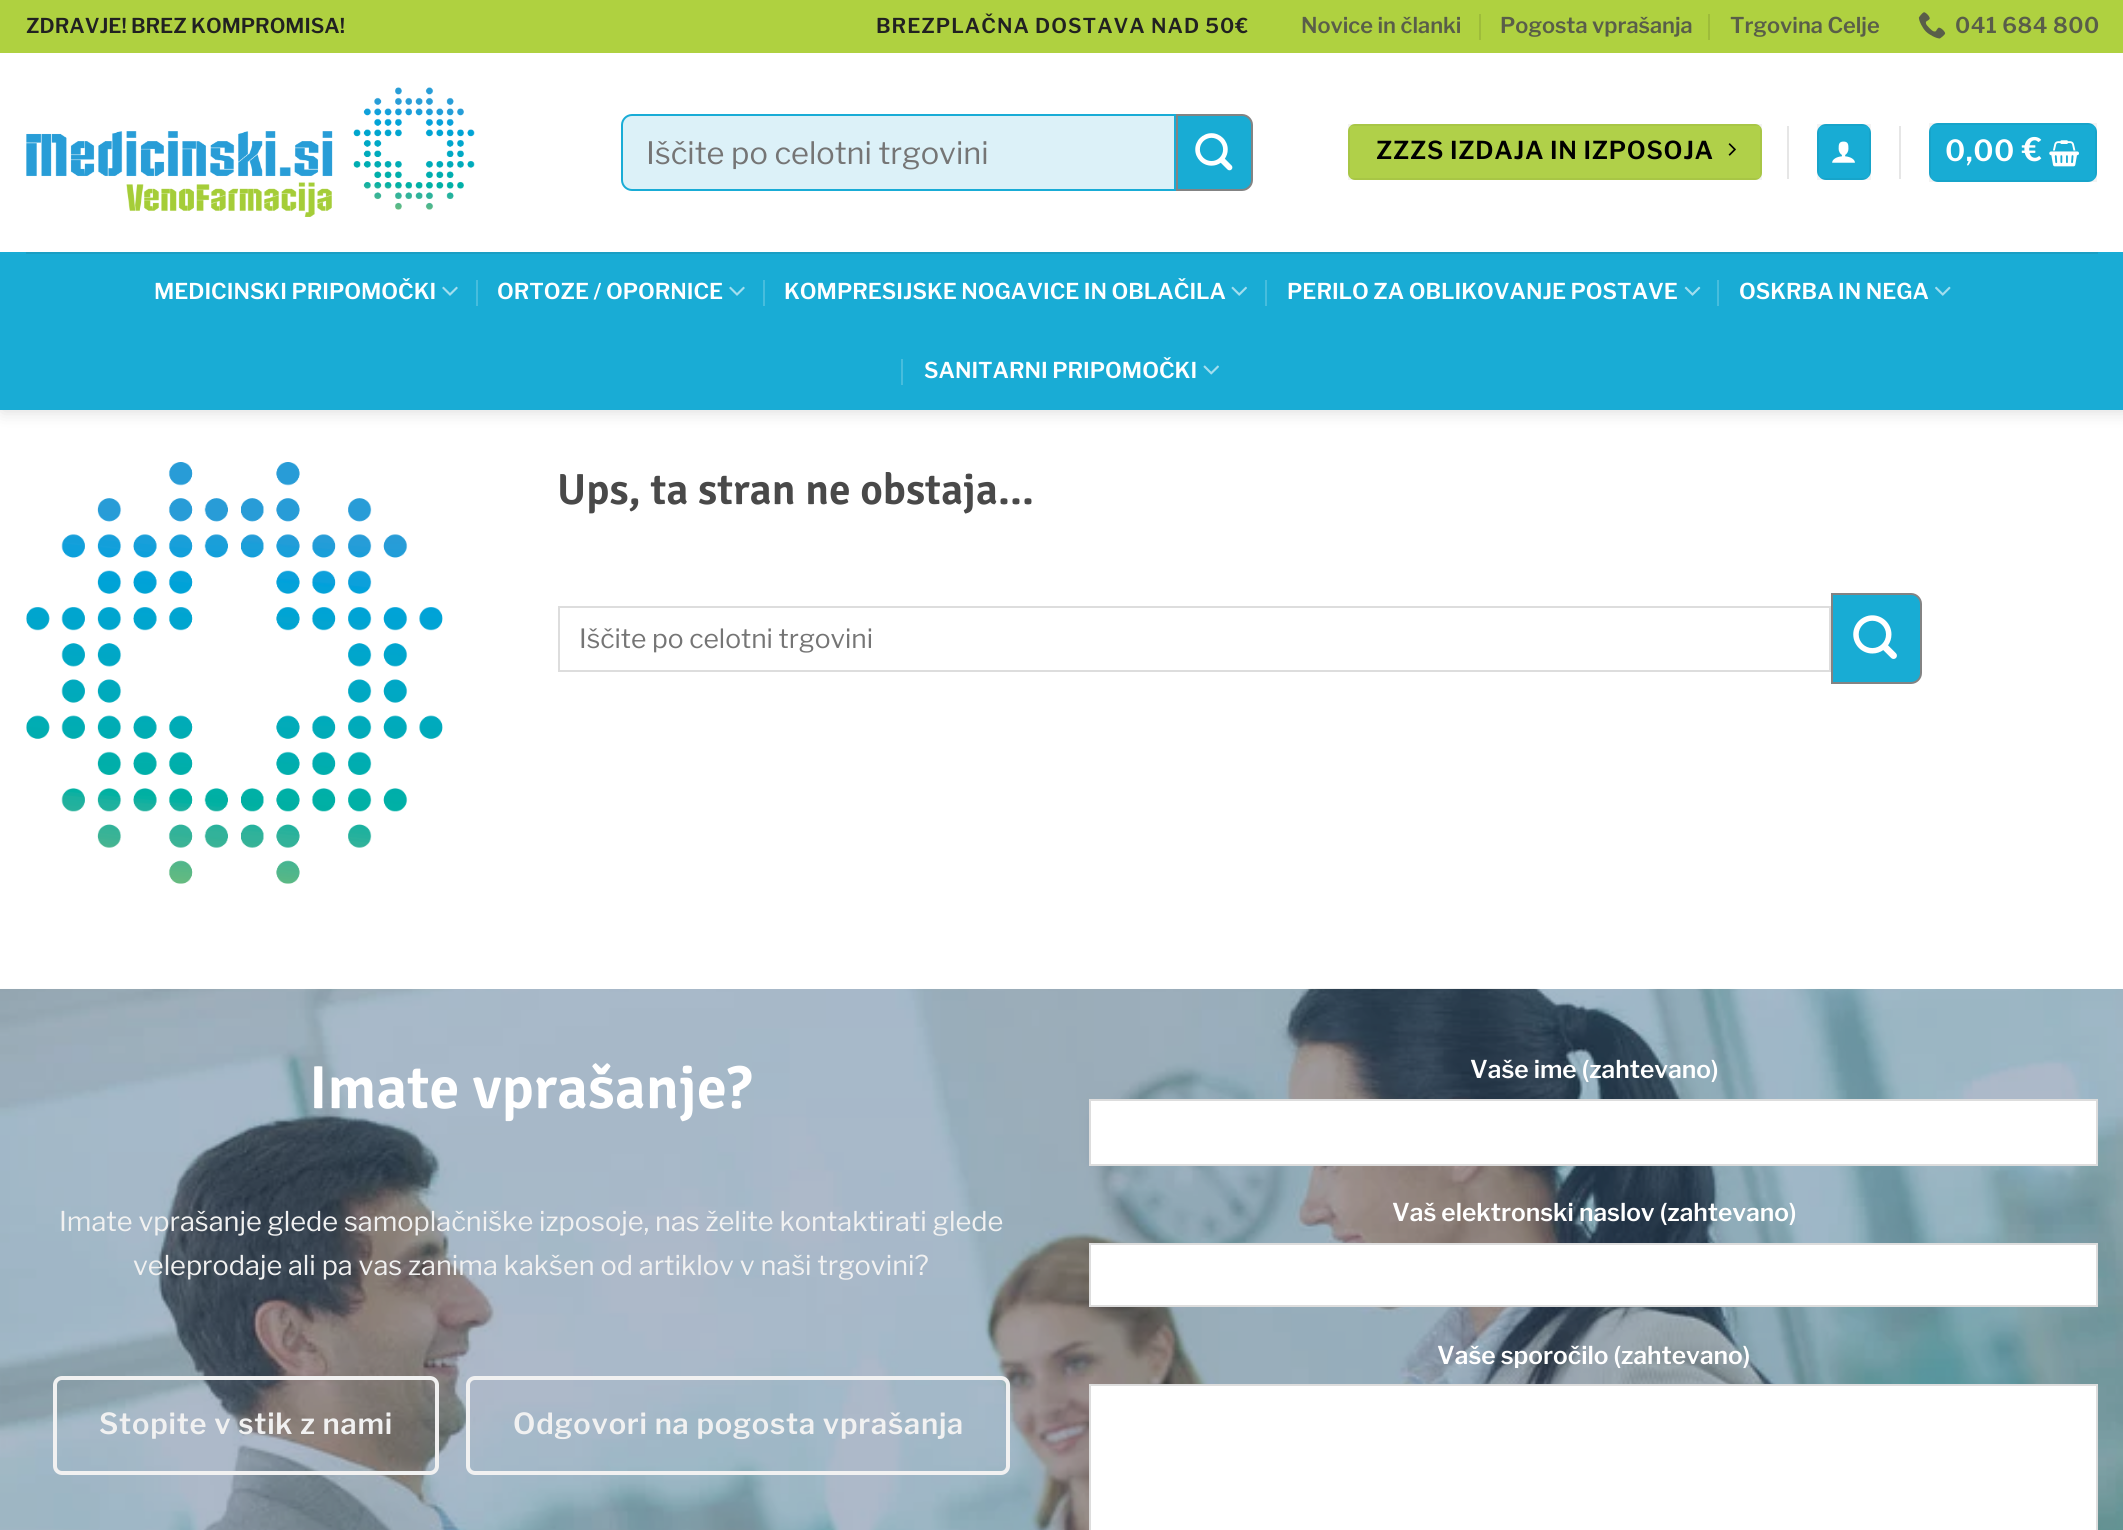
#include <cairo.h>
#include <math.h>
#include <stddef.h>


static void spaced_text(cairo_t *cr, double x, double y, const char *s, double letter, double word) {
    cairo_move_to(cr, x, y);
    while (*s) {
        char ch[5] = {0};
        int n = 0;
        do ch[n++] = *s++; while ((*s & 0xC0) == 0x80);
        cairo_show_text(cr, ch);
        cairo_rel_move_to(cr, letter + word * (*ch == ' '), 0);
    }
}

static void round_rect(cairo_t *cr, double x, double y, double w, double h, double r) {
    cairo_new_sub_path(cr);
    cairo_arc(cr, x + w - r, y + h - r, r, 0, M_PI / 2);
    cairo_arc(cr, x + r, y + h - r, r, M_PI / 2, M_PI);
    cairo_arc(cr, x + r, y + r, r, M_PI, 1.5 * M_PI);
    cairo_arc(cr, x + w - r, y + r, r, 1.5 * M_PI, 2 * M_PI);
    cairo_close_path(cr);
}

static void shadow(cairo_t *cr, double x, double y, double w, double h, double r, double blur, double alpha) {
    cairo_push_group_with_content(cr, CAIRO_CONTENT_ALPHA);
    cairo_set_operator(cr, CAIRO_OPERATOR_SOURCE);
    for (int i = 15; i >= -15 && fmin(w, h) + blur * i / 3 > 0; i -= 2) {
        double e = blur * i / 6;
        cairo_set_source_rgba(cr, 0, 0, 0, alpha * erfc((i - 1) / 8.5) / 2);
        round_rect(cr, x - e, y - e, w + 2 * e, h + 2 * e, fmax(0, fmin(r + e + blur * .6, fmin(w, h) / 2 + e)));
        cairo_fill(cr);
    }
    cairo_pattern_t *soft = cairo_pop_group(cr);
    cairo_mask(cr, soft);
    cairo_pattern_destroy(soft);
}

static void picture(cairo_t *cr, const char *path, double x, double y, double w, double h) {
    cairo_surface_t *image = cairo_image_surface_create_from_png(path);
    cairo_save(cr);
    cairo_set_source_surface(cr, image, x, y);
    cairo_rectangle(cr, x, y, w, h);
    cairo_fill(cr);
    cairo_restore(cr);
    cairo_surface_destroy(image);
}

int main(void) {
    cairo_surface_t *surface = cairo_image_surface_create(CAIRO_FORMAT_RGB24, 2123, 1530);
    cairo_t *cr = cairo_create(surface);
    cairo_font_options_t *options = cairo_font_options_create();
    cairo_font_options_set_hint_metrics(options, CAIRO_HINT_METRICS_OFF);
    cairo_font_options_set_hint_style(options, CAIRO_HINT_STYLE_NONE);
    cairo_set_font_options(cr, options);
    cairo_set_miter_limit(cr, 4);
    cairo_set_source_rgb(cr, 1, 1, 1);
    cairo_paint(cr);
    cairo_set_source_rgb(cr, 0, 0, 0);
    shadow(cr, 2, 2, 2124, 409, 0, 9, 0.15);
    cairo_set_source_rgb(cr, 0.686, 0.82, 0.251);
    cairo_rectangle(cr, 0, 0, 2123, 53);
    cairo_fill(cr);
    cairo_select_font_face(cr, "Libre Franklin SemiBold", CAIRO_FONT_SLANT_NORMAL, CAIRO_FONT_WEIGHT_NORMAL);
    cairo_set_font_size(cr, 20.4);
    cairo_set_source_rgb(cr, 0.129, 0.129, 0.129);
    cairo_move_to(cr, 26, 33);
    cairo_show_text(cr, "ZDRAVJE! BREZ KOMPROMISA!");
    spaced_text(cr, 876, 33, "BREZPLAČNA DOSTAVA NAD 50€", 1, 0);
    cairo_set_font_size(cr, 21.75);
    cairo_set_source_rgb(cr, 0.349, 0.369, 0.286);
    cairo_move_to(cr, 1301, 33);
    cairo_show_text(cr, "Novice in članki");
    cairo_set_source_rgb(cr, 0.62, 0.737, 0.227);
    cairo_rectangle(cr, 1479, 14, 2, 26);
    cairo_fill(cr);
    cairo_set_source_rgb(cr, 0.349, 0.369, 0.286);
    cairo_move_to(cr, 1500, 33);
    cairo_show_text(cr, "Pogosta vprašanja");
    cairo_set_source_rgb(cr, 0.62, 0.737, 0.227);
    cairo_rectangle(cr, 1708, 14, 2, 26);
    cairo_fill(cr);
    cairo_set_source_rgb(cr, 0.349, 0.369, 0.286);
    cairo_move_to(cr, 1730, 33);
    cairo_show_text(cr, "Trgovina Celje");
    picture(cr, "img1.png", 1918, 12, 28, 27);
    spaced_text(cr, 1955, 33, "041 684 800", 0.5, 0);
    cairo_set_source_rgb(cr, 1, 1, 1);
    cairo_rectangle(cr, 0, 53, 2123, 199);
    cairo_fill(cr);
    picture(cr, "img2.png", 26, 87, 449, 130);
    cairo_set_source_rgb(cr, 0.863, 0.945, 0.969);
    cairo_new_path(cr);
    cairo_move_to(cr, 632, 115);
    cairo_line_to(cr, 1175, 115);
    cairo_line_to(cr, 1175, 190);
    cairo_line_to(cr, 632, 190);
    cairo_curve_to(cr, 626.5, 190, 622, 185.5, 622, 180);
    cairo_line_to(cr, 622, 125);
    cairo_curve_to(cr, 622, 119.5, 626.5, 115, 632, 115);
    cairo_close_path(cr);
    cairo_fill_preserve(cr);
    cairo_set_source_rgb(cr, 0.098, 0.675, 0.839);
    cairo_stroke(cr);
    cairo_select_font_face(cr, "Libre Franklin", CAIRO_FONT_SLANT_NORMAL, CAIRO_FONT_WEIGHT_NORMAL);
    cairo_set_font_size(cr, 30.75);
    cairo_set_source_rgb(cr, 0.459, 0.459, 0.459);
    cairo_move_to(cr, 646, 164);
    cairo_show_text(cr, "Iščite po celotni trgovini");
    cairo_set_source_rgb(cr, 0.094, 0.675, 0.831);
    cairo_new_path(cr);
    cairo_move_to(cr, 1177, 115);
    cairo_line_to(cr, 1242, 115);
    cairo_curve_to(cr, 1247.5, 115, 1252, 119.5, 1252, 125);
    cairo_line_to(cr, 1252, 180);
    cairo_curve_to(cr, 1252, 185.5, 1247.5, 190, 1242, 190);
    cairo_line_to(cr, 1177, 190);
    cairo_close_path(cr);
    cairo_fill_preserve(cr);
    cairo_set_source_rgb(cr, 0.514, 0.514, 0.514);
    cairo_stroke(cr);
    picture(cr, "img3.png", 1195, 133, 38, 38);
    cairo_set_source_rgb(cr, 0.69, 0.816, 0.286);
    round_rect(cr, 1348, 124, 414, 56, 7);
    cairo_fill(cr);
    cairo_rectangle(cr, 1349, 125, 412, 54);
    cairo_set_source_rgba(cr, 0, 0, 0, 0.05);
    cairo_stroke(cr);
    cairo_select_font_face(cr, "Libre Franklin SemiBold", CAIRO_FONT_SLANT_NORMAL, CAIRO_FONT_WEIGHT_NORMAL);
    cairo_set_font_size(cr, 24.6);
    cairo_set_source_rgb(cr, 0, 0, 0);
    spaced_text(cr, 1376, 159, "ZZZS IZDAJA IN IZPOSOJA", 0.7, 0);
    picture(cr, "img4.png", 1728, 143, 8, 13);
    cairo_set_source_rgb(cr, 0.902, 0.902, 0.902);
    cairo_rectangle(cr, 1787, 126, 2, 53);
    cairo_fill(cr);
    cairo_set_source_rgb(cr, 0.094, 0.675, 0.831);
    round_rect(cr, 1817, 124, 54, 56, 9);
    cairo_fill(cr);
    cairo_rectangle(cr, 1818, 125, 52, 54);
    cairo_set_source_rgba(cr, 0, 0, 0, 0.05);
    cairo_stroke(cr);
    picture(cr, "img5.png", 1832, 141, 23, 22);
    cairo_set_source_rgb(cr, 0.902, 0.902, 0.902);
    cairo_rectangle(cr, 1899, 126, 2, 53);
    cairo_fill(cr);
    cairo_set_source_rgb(cr, 0.094, 0.675, 0.831);
    round_rect(cr, 1929, 123, 168, 59, 9);
    cairo_fill(cr);
    cairo_rectangle(cr, 1930, 124, 166, 57);
    cairo_set_source_rgba(cr, 0, 0, 0, 0.05);
    cairo_stroke(cr);
    cairo_set_font_size(cr, 29);
    cairo_set_source_rgb(cr, 1, 1, 1);
    spaced_text(cr, 1945, 161, "0,00", 0.5, 0);
    cairo_set_font_size(cr, 32);
    spaced_text(cr, 2022, 161, "€", 0.5, 0);
    picture(cr, "img6.png", 2049, 140, 30, 27);
    cairo_set_source_rgb(cr, 0.098, 0.675, 0.835);
    cairo_rectangle(cr, 0, 252, 2123, 158);
    cairo_fill(cr);
    cairo_set_source_rgb(cr, 0.102, 0.62, 0.765);
    cairo_rectangle(cr, 26, 252, 2072, 2);
    cairo_fill(cr);
    cairo_set_font_size(cr, 21.75);
    cairo_set_source_rgb(cr, 1, 1, 1);
    cairo_move_to(cr, 154, 299);
    cairo_show_text(cr, "MEDICINSKI PRIPOMOČKI");
    picture(cr, "img7.png", 442, 286, 16, 10);
    cairo_set_source_rgb(cr, 0.278, 0.741, 0.867);
    cairo_rectangle(cr, 476, 280, 2, 26);
    cairo_fill(cr);
    cairo_set_source_rgb(cr, 1, 1, 1);
    cairo_move_to(cr, 497, 299);
    cairo_show_text(cr, "ORTOZE / OPORNICE");
    picture(cr, "img7.png", 729, 286, 16, 10);
    cairo_set_source_rgb(cr, 0.278, 0.741, 0.867);
    cairo_rectangle(cr, 763, 280, 2, 26);
    cairo_fill(cr);
    cairo_set_source_rgb(cr, 1, 1, 1);
    cairo_move_to(cr, 784, 299);
    cairo_show_text(cr, "KOMPRESIJSKE NOGAVICE IN OBLAČILA");
    picture(cr, "img8.png", 1231, 286, 16, 10);
    cairo_set_source_rgb(cr, 0.278, 0.741, 0.867);
    cairo_rectangle(cr, 1265, 280, 2, 26);
    cairo_fill(cr);
    cairo_set_source_rgb(cr, 1, 1, 1);
    cairo_move_to(cr, 1287, 299);
    cairo_show_text(cr, "PERILO ZA OBLIKOVANJE POSTAVE");
    picture(cr, "img9.png", 1684, 286, 17, 10);
    cairo_set_source_rgb(cr, 0.278, 0.741, 0.867);
    cairo_rectangle(cr, 1717, 280, 2, 26);
    cairo_fill(cr);
    cairo_set_source_rgb(cr, 1, 1, 1);
    cairo_move_to(cr, 1739, 299);
    cairo_show_text(cr, "OSKRBA IN NEGA");
    picture(cr, "img10.png", 1935, 286, 16, 10);
    cairo_set_source_rgb(cr, 0.278, 0.741, 0.867);
    cairo_rectangle(cr, 901, 359, 2, 26);
    cairo_fill(cr);
    cairo_set_source_rgb(cr, 1, 1, 1);
    cairo_move_to(cr, 924, 378);
    cairo_show_text(cr, "SANITARNI PRIPOMOČKI");
    picture(cr, "img11.png", 1203, 365, 16, 10);
    picture(cr, "img12.png", 26, 462, 417, 422);
    cairo_select_font_face(cr, "Signika SemiBold", CAIRO_FONT_SLANT_NORMAL, CAIRO_FONT_WEIGHT_NORMAL);
    cairo_set_font_size(cr, 43.5);
    cairo_set_source_rgb(cr, 0.286, 0.286, 0.286);
    cairo_move_to(cr, 557, 504);
    cairo_show_text(cr, "Ups, ta stran ne obstaja...");
    cairo_rectangle(cr, 559, 607, 1271, 64);
    cairo_set_source_rgb(cr, 0.867, 0.867, 0.867);
    cairo_stroke(cr);
    cairo_select_font_face(cr, "Libre Franklin", CAIRO_FONT_SLANT_NORMAL, CAIRO_FONT_WEIGHT_NORMAL);
    cairo_set_font_size(cr, 26.4);
    cairo_set_source_rgb(cr, 0.459, 0.459, 0.459);
    cairo_move_to(cr, 579, 648);
    cairo_show_text(cr, "Iščite po celotni trgovini");
    cairo_set_source_rgb(cr, 0.094, 0.675, 0.831);
    cairo_new_path(cr);
    cairo_move_to(cr, 1832, 594);
    cairo_line_to(cr, 1911, 594);
    cairo_curve_to(cr, 1916.5, 594, 1921, 598.5, 1921, 604);
    cairo_line_to(cr, 1921, 673);
    cairo_curve_to(cr, 1921, 678.5, 1916.5, 683, 1911, 683);
    cairo_line_to(cr, 1832, 683);
    cairo_close_path(cr);
    cairo_fill_preserve(cr);
    cairo_set_source_rgb(cr, 0.514, 0.514, 0.514);
    cairo_stroke(cr);
    picture(cr, "img13.png", 1853, 615, 44, 44);
    picture(cr, "img14.png", 0, 988, 2123, 542);
    cairo_select_font_face(cr, "Signika SemiBold", CAIRO_FONT_SLANT_NORMAL, CAIRO_FONT_WEIGHT_NORMAL);
    cairo_set_font_size(cr, 60.75);
    cairo_set_source_rgb(cr, 1, 1, 1);
    cairo_move_to(cr, 309, 1108);
    cairo_show_text(cr, "Imate vprašanje?");
    cairo_select_font_face(cr, "Libre Franklin", CAIRO_FONT_SLANT_NORMAL, CAIRO_FONT_WEIGHT_NORMAL);
    cairo_set_font_size(cr, 27.15);
    cairo_set_source_rgb(cr, 0.945, 0.945, 0.945);
    cairo_move_to(cr, 59, 1231);
    cairo_show_text(cr, "Imate vprašanje glede samoplačniške izposoje, nas želite kontaktirati glede");
    cairo_move_to(cr, 133, 1275);
    cairo_show_text(cr, "veleprodaje ali pa vas zanima kakšen od artiklov v naši trgovini?");
    round_rect(cr, 55, 1378, 382, 95, 7);
    cairo_set_line_width(cr, 4);
    cairo_stroke(cr);
    cairo_select_font_face(cr, "Libre Franklin SemiBold", CAIRO_FONT_SLANT_NORMAL, CAIRO_FONT_WEIGHT_NORMAL);
    cairo_set_font_size(cr, 29);
    spaced_text(cr, 99, 1434, "Stopite v stik z nami", 0.8, 0);
    round_rect(cr, 468, 1378, 540, 95, 7);
    cairo_stroke(cr);
    spaced_text(cr, 513, 1434, "Odgovori na pogosta vprašanja", 0.8, 0);
    cairo_set_font_size(cr, 24.5);
    cairo_set_source_rgb(cr, 1, 1, 1);
    cairo_move_to(cr, 1470, 1078);
    cairo_show_text(cr, "Vaše ime (zahtevano)");
    cairo_rectangle(cr, 1090, 1100, 1007, 65);
    cairo_fill_preserve(cr);
    cairo_set_source_rgb(cr, 0.867, 0.867, 0.867);
    cairo_set_line_width(cr, 2);
    cairo_stroke(cr);
    cairo_set_source_rgb(cr, 1, 1, 1);
    cairo_move_to(cr, 1392, 1221);
    cairo_show_text(cr, "Vaš elektronski naslov (zahtevano)");
    cairo_rectangle(cr, 1090, 1244, 1007, 62);
    cairo_fill_preserve(cr);
    cairo_set_source_rgb(cr, 0.867, 0.867, 0.867);
    cairo_stroke(cr);
    cairo_set_source_rgb(cr, 1, 1, 1);
    cairo_move_to(cr, 1437, 1364);
    cairo_show_text(cr, "Vaše sporočilo (zahtevano)");
    cairo_rectangle(cr, 1090, 1385, 1007, 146);
    cairo_fill_preserve(cr);
    cairo_set_source_rgb(cr, 0.867, 0.867, 0.867);
    cairo_stroke(cr);
    cairo_surface_write_to_png(surface, "page.png");
    cairo_font_options_destroy(options);
    cairo_destroy(cr);
    cairo_surface_destroy(surface);
    return 0;
}
